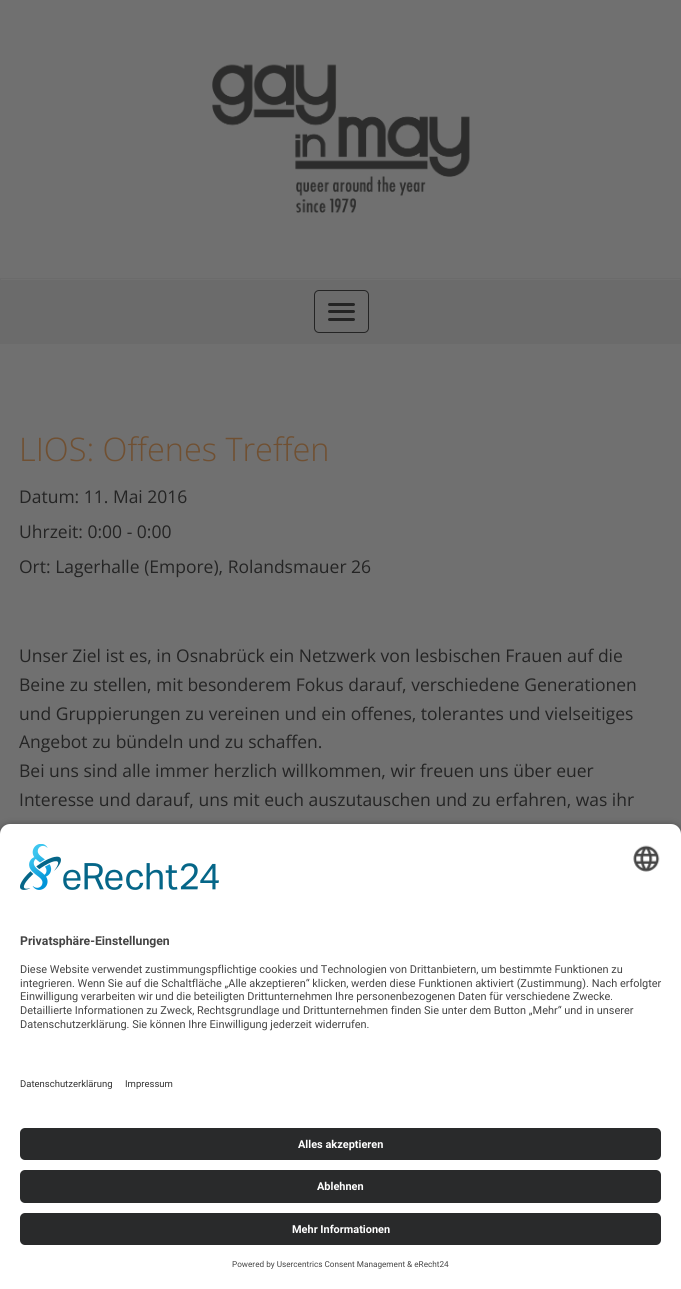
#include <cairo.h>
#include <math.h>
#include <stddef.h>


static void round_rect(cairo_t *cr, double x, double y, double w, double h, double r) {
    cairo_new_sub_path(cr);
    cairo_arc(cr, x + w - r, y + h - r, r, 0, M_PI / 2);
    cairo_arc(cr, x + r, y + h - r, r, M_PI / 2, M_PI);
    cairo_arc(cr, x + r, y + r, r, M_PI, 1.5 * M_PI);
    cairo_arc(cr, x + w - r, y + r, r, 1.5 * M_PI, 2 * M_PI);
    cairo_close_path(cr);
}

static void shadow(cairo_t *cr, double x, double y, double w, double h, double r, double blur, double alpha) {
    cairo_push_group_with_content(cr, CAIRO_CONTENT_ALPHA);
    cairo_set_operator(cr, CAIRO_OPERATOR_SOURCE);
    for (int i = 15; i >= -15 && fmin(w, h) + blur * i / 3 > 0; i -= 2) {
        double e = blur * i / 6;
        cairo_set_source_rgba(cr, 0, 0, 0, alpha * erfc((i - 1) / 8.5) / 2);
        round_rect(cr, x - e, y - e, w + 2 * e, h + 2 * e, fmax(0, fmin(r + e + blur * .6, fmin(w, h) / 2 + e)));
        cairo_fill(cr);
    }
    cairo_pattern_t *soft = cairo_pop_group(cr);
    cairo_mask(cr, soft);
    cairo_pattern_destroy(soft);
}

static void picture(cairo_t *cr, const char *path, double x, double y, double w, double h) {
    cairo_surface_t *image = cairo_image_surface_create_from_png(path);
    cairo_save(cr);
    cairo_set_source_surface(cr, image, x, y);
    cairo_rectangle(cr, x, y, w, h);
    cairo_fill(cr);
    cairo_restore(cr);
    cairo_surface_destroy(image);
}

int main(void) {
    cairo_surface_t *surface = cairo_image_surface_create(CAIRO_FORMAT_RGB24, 681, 1289);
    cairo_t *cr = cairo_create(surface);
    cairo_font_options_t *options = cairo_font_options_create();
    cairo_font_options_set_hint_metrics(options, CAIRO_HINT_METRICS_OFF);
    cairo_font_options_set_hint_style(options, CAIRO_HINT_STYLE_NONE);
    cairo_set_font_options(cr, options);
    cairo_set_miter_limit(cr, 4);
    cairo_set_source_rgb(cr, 0.439, 0.439, 0.439);
    cairo_paint(cr);
    picture(cr, "img1.png", 212, 64, 258, 149);
    cairo_set_source_rgb(cr, 0.42, 0.42, 0.42);
    cairo_rectangle(cr, 0, 278, 681, 66);
    cairo_fill(cr);
    cairo_set_source_rgb(cr, 0.439, 0.439, 0.439);
    cairo_rectangle(cr, 1, 279, 679, 1);
    cairo_fill(cr);
    round_rect(cr, 314.5, 290.5, 54, 42, 4.5);
    cairo_set_source_rgb(cr, 0.141, 0.141, 0.141);
    cairo_set_line_width(cr, 1);
    cairo_stroke(cr);
    round_rect(cr, 328, 303, 27, 3, 1.5);
    cairo_fill(cr);
    round_rect(cr, 328, 310, 27, 3, 1.5);
    cairo_fill(cr);
    round_rect(cr, 328, 318, 27, 3, 1.5);
    cairo_fill(cr);
    cairo_select_font_face(cr, "Open Sans Light", CAIRO_FONT_SLANT_NORMAL, CAIRO_FONT_WEIGHT_NORMAL);
    cairo_set_font_size(cr, 32.5);
    cairo_set_source_rgb(cr, 0.439, 0.314, 0.196);
    cairo_move_to(cr, 19, 461);
    cairo_show_text(cr, "LIOS: Offenes Treffen");
    cairo_select_font_face(cr, "Open Sans", CAIRO_FONT_SLANT_NORMAL, CAIRO_FONT_WEIGHT_NORMAL);
    cairo_set_font_size(cr, 17.5);
    cairo_set_source_rgb(cr, 0.141, 0.141, 0.141);
    cairo_move_to(cr, 19, 503);
    cairo_show_text(cr, "Datum: 11. Mai 2016");
    cairo_move_to(cr, 19, 538);
    cairo_show_text(cr, "Uhrzeit: 0:00 - 0:00");
    cairo_move_to(cr, 19, 573);
    cairo_show_text(cr, "Ort: Lagerhalle (Empore), Rolandsmauer 26");
    cairo_move_to(cr, 19, 662);
    cairo_show_text(cr, "Unser Ziel ist es, in Osnabrück ein Netzwerk von lesbischen Frauen auf die");
    cairo_move_to(cr, 19, 691);
    cairo_show_text(cr, "Beine zu stellen, mit besonderem Fokus darauf, verschiedene Generationen");
    cairo_move_to(cr, 19, 720);
    cairo_show_text(cr, "und Gruppierungen zu vereinen und ein offenes, tolerantes und vielseitiges");
    cairo_move_to(cr, 19, 748);
    cairo_show_text(cr, "Angebot zu bündeln und zu schaffen.");
    cairo_move_to(cr, 19, 777);
    cairo_show_text(cr, "Bei uns sind alle immer herzlich willkommen, wir freuen uns über euer");
    cairo_move_to(cr, 19, 806);
    cairo_show_text(cr, "Interesse und darauf, uns mit euch auszutauschen und zu erfahren, was ihr");
    cairo_set_source_rgb(cr, 0, 0, 0);
    shadow(cr, 0, 828, 681, 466, 10, 4.5, 0.8);
    cairo_set_source_rgb(cr, 1, 1, 1);
    cairo_new_path(cr);
    cairo_move_to(cr, 10, 824);
    cairo_line_to(cr, 671, 824);
    cairo_curve_to(cr, 676.5, 824, 681, 828.5, 681, 834);
    cairo_line_to(cr, 681, 1056);
    cairo_line_to(cr, 0, 1056);
    cairo_line_to(cr, 0, 834);
    cairo_curve_to(cr, 0, 828.5, 4.5, 824, 10, 824);
    cairo_close_path(cr);
    cairo_fill(cr);
    picture(cr, "img2.png", 20, 844, 199, 46);
    picture(cr, "img3.png", 633, 845, 27, 27);
    cairo_select_font_face(cr, "Roboto", CAIRO_FONT_SLANT_NORMAL, CAIRO_FONT_WEIGHT_BOLD);
    cairo_set_font_size(cr, 12.25);
    cairo_set_source_rgb(cr, 0.267, 0.267, 0.267);
    cairo_move_to(cr, 20, 945);
    cairo_show_text(cr, "Privatsphäre-Einstellungen");
    cairo_select_font_face(cr, "Roboto", CAIRO_FONT_SLANT_NORMAL, CAIRO_FONT_WEIGHT_NORMAL);
    cairo_set_font_size(cr, 10.95);
    cairo_move_to(cr, 20, 973);
    cairo_show_text(cr, "Diese Website verwendet zustimmungspflichtige cookies und Technologien von Drittanbietern, um bestimmte Funktionen zu");
    cairo_move_to(cr, 20, 987);
    cairo_show_text(cr, "integrieren. Wenn Sie auf die Schaltfläche „Alle akzeptieren“ klicken, werden diese Funktionen aktiviert (Zustimmung). Nach erfolgter");
    cairo_move_to(cr, 20, 1000);
    cairo_show_text(cr, "Einwilligung verarbeiten wir und die beteiligten Drittunternehmen Ihre personenbezogenen Daten für verschiedene Zwecke.");
    cairo_move_to(cr, 20, 1014);
    cairo_show_text(cr, "Detaillierte Informationen zu Zweck, Rechtsgrundlage und Drittunternehmen finden Sie unter dem Button „Mehr“ und in unserer");
    cairo_move_to(cr, 20, 1028);
    cairo_show_text(cr, "Datenschutzerklärung. Sie können Ihre Einwilligung jederzeit widerrufen.");
    cairo_set_source_rgb(cr, 1, 1, 1);
    cairo_rectangle(cr, 0, 1056, 681, 233);
    cairo_fill(cr);
    cairo_set_font_size(cr, 9.5);
    cairo_set_source_rgb(cr, 0.188, 0.188, 0.188);
    cairo_move_to(cr, 20, 1087);
    cairo_show_text(cr, "Datenschutzerklärung");
    cairo_move_to(cr, 125, 1087);
    cairo_show_text(cr, "Impressum");
    cairo_set_source_rgb(cr, 0.161, 0.165, 0.169);
    round_rect(cr, 20, 1128, 641, 32, 5);
    cairo_fill(cr);
    cairo_select_font_face(cr, "Roboto", CAIRO_FONT_SLANT_NORMAL, CAIRO_FONT_WEIGHT_BOLD);
    cairo_set_font_size(cr, 10.95);
    cairo_set_source_rgb(cr, 1, 1, 1);
    cairo_move_to(cr, 298, 1148);
    cairo_show_text(cr, "Alles akzeptieren");
    cairo_set_source_rgb(cr, 0.161, 0.165, 0.169);
    round_rect(cr, 20, 1170, 641, 33, 5);
    cairo_fill(cr);
    cairo_set_source_rgb(cr, 1, 1, 1);
    cairo_move_to(cr, 317, 1190);
    cairo_show_text(cr, "Ablehnen");
    cairo_set_source_rgb(cr, 0.161, 0.165, 0.169);
    round_rect(cr, 20, 1213, 641, 32, 5);
    cairo_fill(cr);
    cairo_set_source_rgb(cr, 1, 1, 1);
    cairo_move_to(cr, 292, 1233);
    cairo_show_text(cr, "Mehr Informationen");
    cairo_select_font_face(cr, "Roboto", CAIRO_FONT_SLANT_NORMAL, CAIRO_FONT_WEIGHT_NORMAL);
    cairo_set_font_size(cr, 8.2);
    cairo_set_source_rgb(cr, 0.267, 0.267, 0.267);
    cairo_move_to(cr, 232, 1267);
    cairo_show_text(cr, "Powered by Usercentrics Consent Management & eRecht24");
    cairo_surface_write_to_png(surface, "page.png");
    cairo_font_options_destroy(options);
    cairo_destroy(cr);
    cairo_surface_destroy(surface);
    return 0;
}
